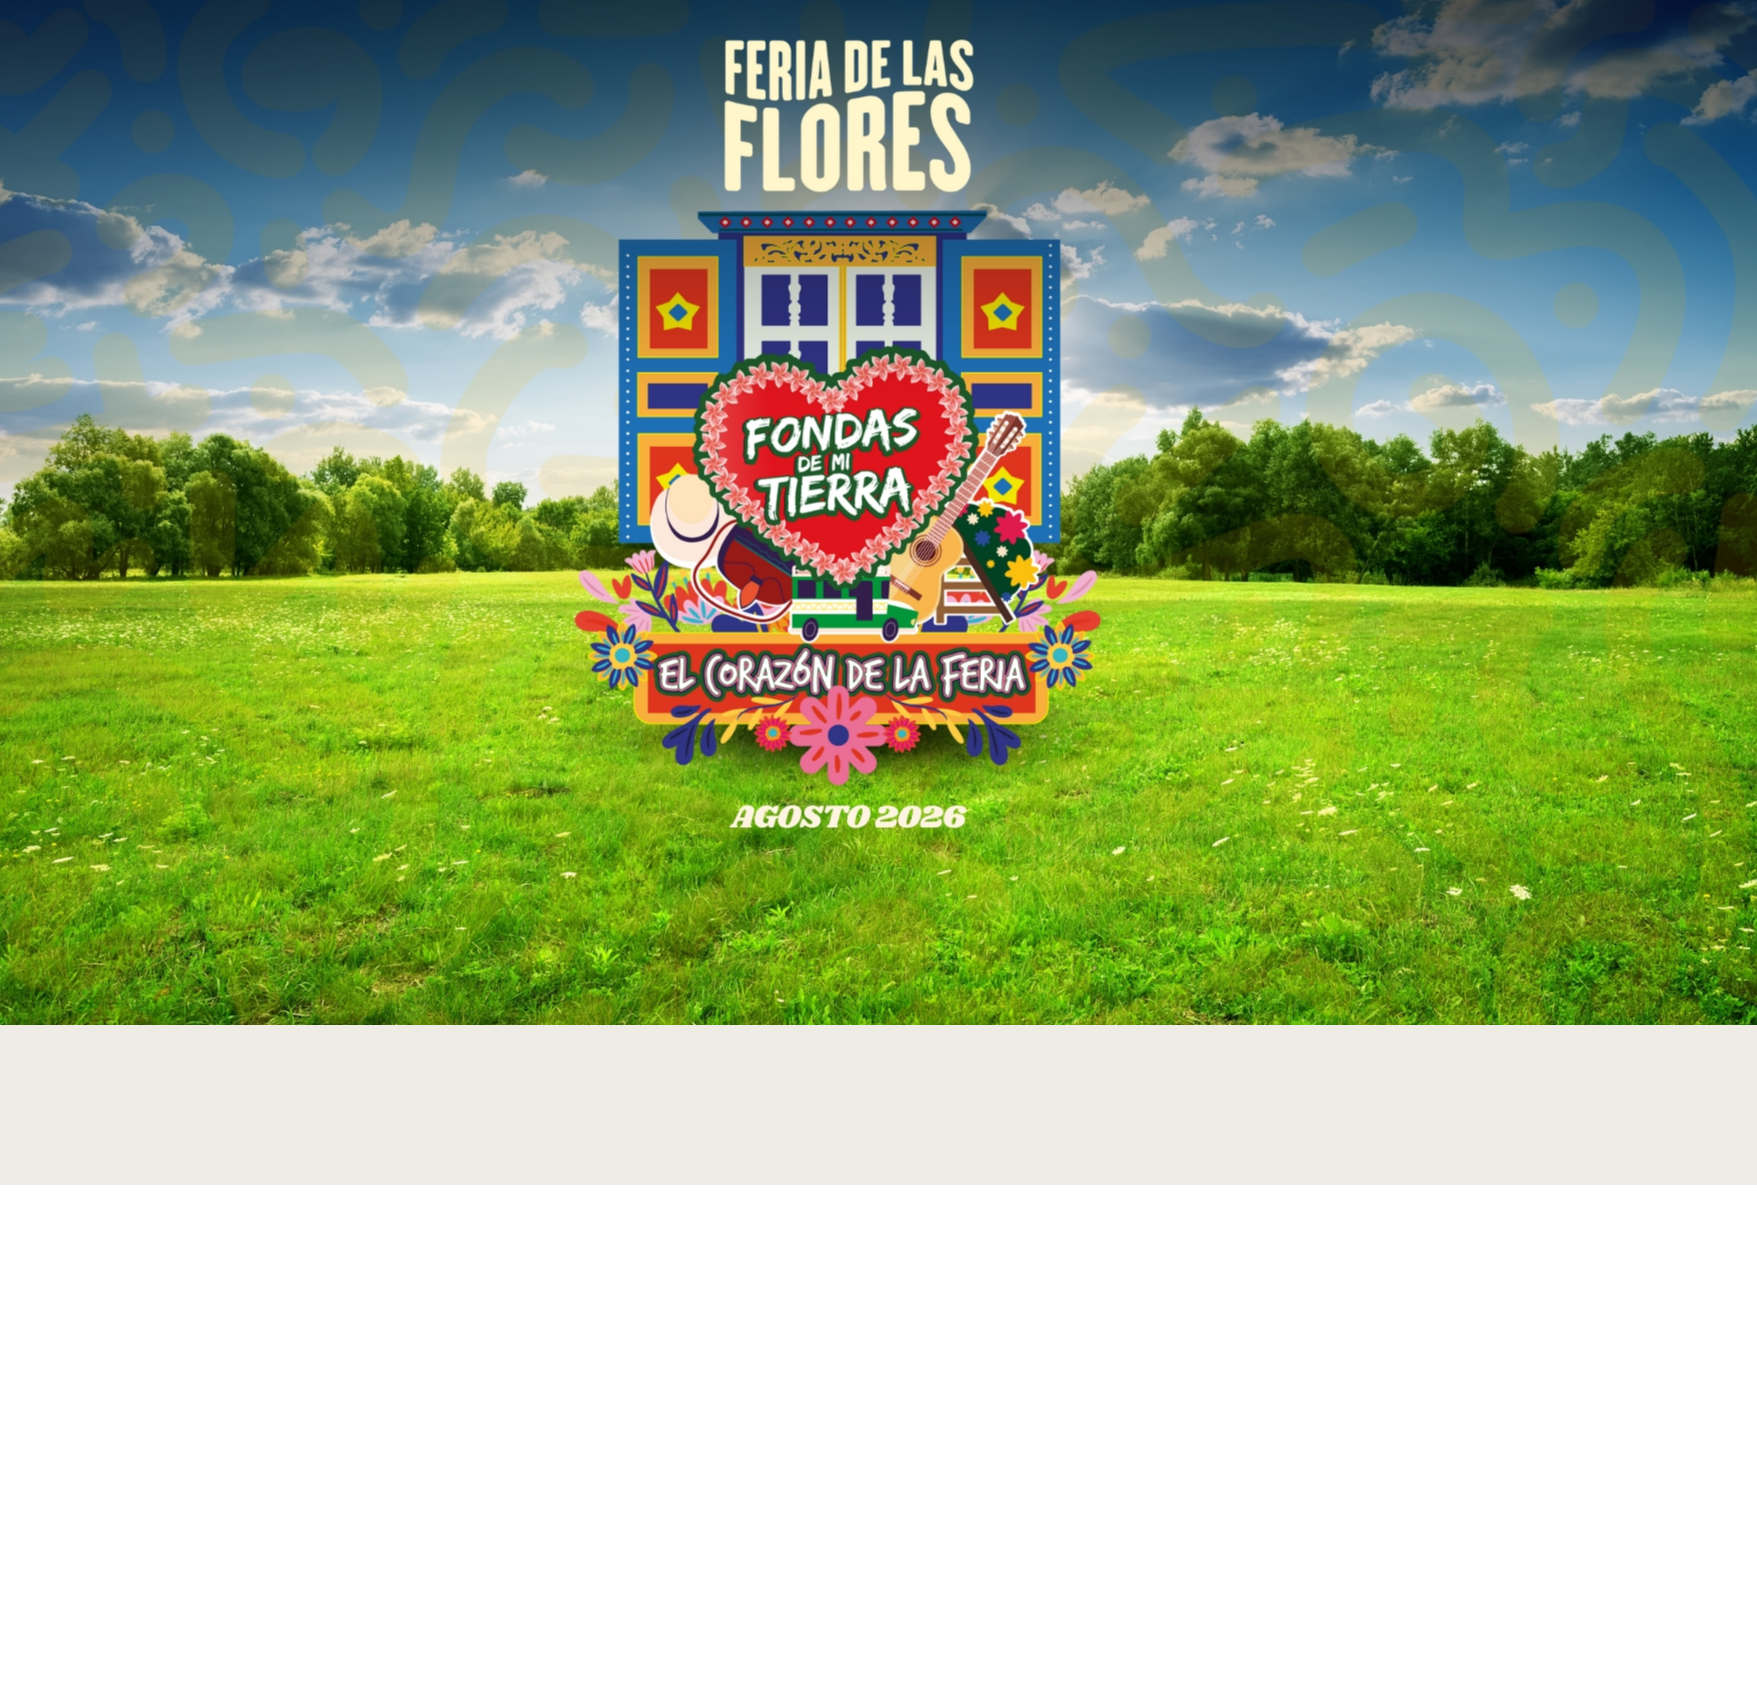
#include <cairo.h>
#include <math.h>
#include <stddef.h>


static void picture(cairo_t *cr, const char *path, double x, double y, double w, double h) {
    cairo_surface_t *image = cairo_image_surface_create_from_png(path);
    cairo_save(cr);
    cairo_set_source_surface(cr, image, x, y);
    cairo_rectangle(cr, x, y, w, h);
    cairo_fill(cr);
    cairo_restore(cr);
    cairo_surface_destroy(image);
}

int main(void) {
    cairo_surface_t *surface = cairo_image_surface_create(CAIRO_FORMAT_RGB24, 1757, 1700);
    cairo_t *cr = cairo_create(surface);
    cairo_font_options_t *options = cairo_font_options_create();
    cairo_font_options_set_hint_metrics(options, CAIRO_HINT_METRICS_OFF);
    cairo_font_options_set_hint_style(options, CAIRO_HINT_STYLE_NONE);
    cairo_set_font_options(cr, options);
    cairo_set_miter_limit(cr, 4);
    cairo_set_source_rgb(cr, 1, 1, 1);
    cairo_paint(cr);
    picture(cr, "img1.png", 0, 0, 1757, 1025);
    cairo_set_source_rgb(cr, 0.937, 0.925, 0.898);
    cairo_rectangle(cr, 0, 1025, 1757, 160);
    cairo_fill(cr);
    cairo_surface_write_to_png(surface, "page.png");
    cairo_font_options_destroy(options);
    cairo_destroy(cr);
    cairo_surface_destroy(surface);
    return 0;
}
